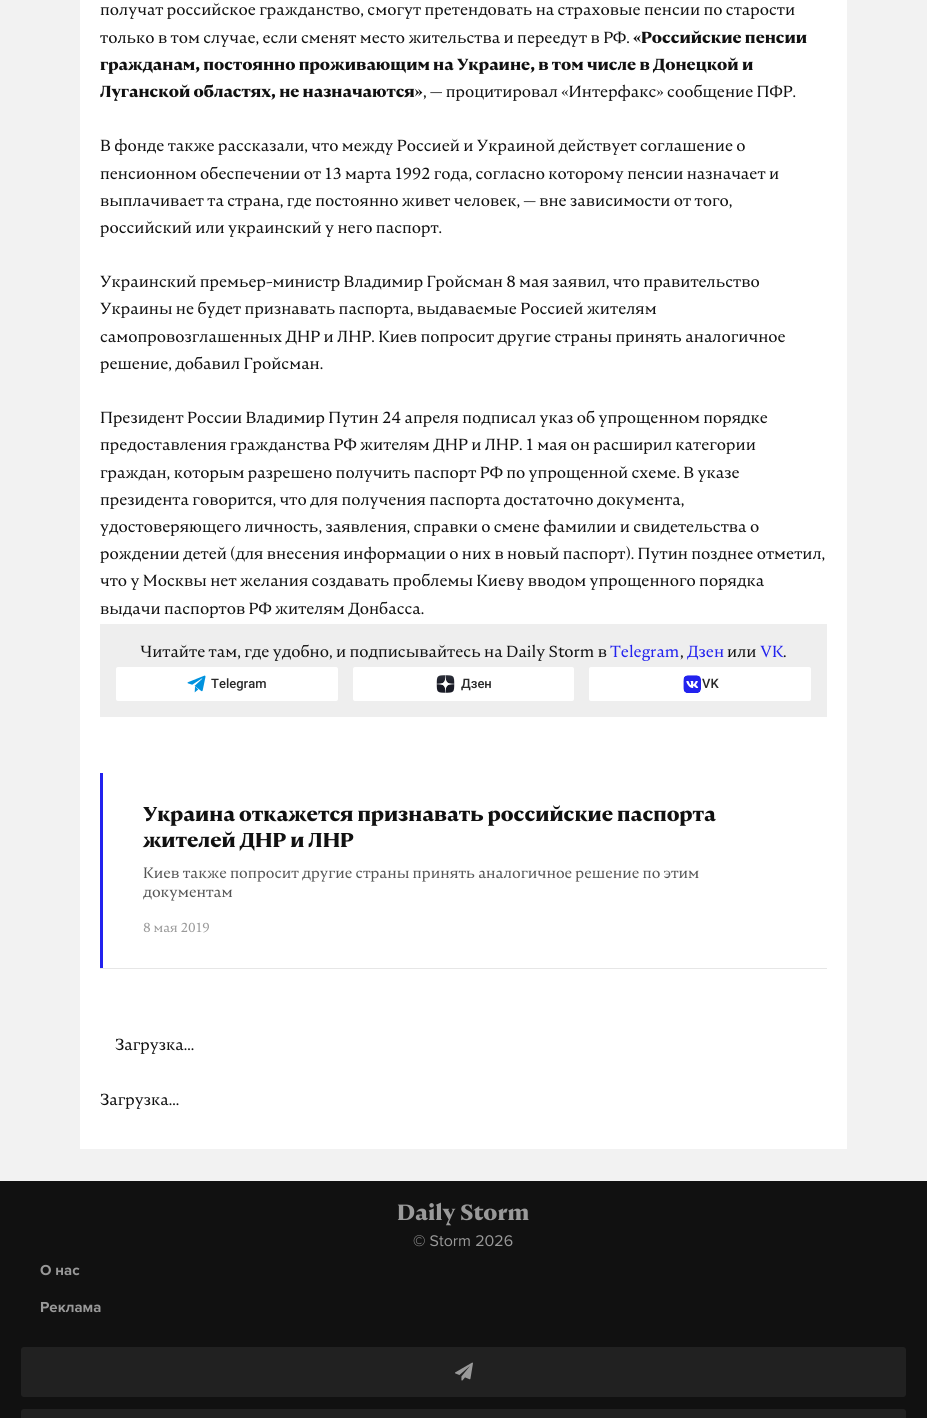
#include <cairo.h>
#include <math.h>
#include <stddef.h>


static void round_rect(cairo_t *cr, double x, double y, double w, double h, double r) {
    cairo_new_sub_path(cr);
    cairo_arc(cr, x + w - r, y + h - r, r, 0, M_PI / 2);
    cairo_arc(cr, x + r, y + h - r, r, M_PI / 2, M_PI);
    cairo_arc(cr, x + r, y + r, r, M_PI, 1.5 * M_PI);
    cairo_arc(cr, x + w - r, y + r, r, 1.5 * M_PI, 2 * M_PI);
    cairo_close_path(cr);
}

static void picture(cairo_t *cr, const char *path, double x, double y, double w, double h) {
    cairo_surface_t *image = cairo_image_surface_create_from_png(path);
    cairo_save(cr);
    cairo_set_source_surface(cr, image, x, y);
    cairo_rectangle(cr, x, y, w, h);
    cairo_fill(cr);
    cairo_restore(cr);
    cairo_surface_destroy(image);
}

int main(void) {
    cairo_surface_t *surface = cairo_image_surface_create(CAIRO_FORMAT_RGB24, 927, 1418);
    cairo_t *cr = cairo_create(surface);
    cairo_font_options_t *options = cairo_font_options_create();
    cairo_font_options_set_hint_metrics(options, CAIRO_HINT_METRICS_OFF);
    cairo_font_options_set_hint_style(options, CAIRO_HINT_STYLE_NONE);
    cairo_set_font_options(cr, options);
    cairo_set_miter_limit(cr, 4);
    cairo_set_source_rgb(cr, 0.949, 0.949, 0.949);
    cairo_paint(cr);
    cairo_set_source_rgb(cr, 1, 1, 1);
    cairo_rectangle(cr, 80, 0, 767, 1149);
    cairo_fill(cr);
    cairo_select_font_face(cr, "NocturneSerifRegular", CAIRO_FONT_SLANT_NORMAL, CAIRO_FONT_WEIGHT_NORMAL);
    cairo_set_font_size(cr, 16);
    cairo_set_source_rgb(cr, 0.067, 0.067, 0.067);
    cairo_move_to(cr, 100, 15);
    cairo_show_text(cr, "получат российское гражданство, смогут претендовать на страховые пенсии по старости");
    cairo_move_to(cr, 100, 43);
    cairo_show_text(cr, "только в том случае, если сменят место жительства и переедут в РФ.");
    cairo_select_font_face(cr, "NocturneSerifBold", CAIRO_FONT_SLANT_NORMAL, CAIRO_FONT_WEIGHT_NORMAL);
    cairo_move_to(cr, 633, 43);
    cairo_show_text(cr, "«Российские пенсии");
    cairo_move_to(cr, 100, 70);
    cairo_show_text(cr, "гражданам, постоянно проживающим на Украине, в том числе в Донецкой и");
    cairo_move_to(cr, 100, 97);
    cairo_show_text(cr, "Луганской областях, не назначаются»");
    cairo_select_font_face(cr, "NocturneSerifRegular", CAIRO_FONT_SLANT_NORMAL, CAIRO_FONT_WEIGHT_NORMAL);
    cairo_move_to(cr, 423, 97);
    cairo_show_text(cr, ", — процитировал «Интерфакс» сообщение ПФР.");
    cairo_move_to(cr, 100, 151);
    cairo_show_text(cr, "В фонде также рассказали, что между Россией и Украиной действует соглашение о");
    cairo_move_to(cr, 100, 179);
    cairo_show_text(cr, "пенсионном обеспечении от 13 марта 1992 года, согласно которому пенсии назначает и");
    cairo_move_to(cr, 100, 206);
    cairo_show_text(cr, "выплачивает та страна, где постоянно живет человек, — вне зависимости от того,");
    cairo_move_to(cr, 100, 233);
    cairo_show_text(cr, "российский или украинский у него паспорт.");
    cairo_move_to(cr, 100, 287);
    cairo_show_text(cr, "Украинский премьер-министр Владимир Гройсман 8 мая заявил, что правительство");
    cairo_move_to(cr, 100, 314);
    cairo_show_text(cr, "Украины не будет признавать паспорта, выдаваемые Россией жителям");
    cairo_move_to(cr, 100, 342);
    cairo_show_text(cr, "самопровозглашенных ДНР и ЛНР. Киев попросит другие страны принять аналогичное");
    cairo_move_to(cr, 100, 369);
    cairo_show_text(cr, "решение, добавил Гройсман.");
    cairo_move_to(cr, 100, 423);
    cairo_show_text(cr, "Президент России Владимир Путин 24 апреля подписал указ об упрощенном порядке");
    cairo_move_to(cr, 100, 450);
    cairo_show_text(cr, "предоставления гражданства РФ жителям ДНР и ЛНР. 1 мая он расширил категории");
    cairo_move_to(cr, 100, 478);
    cairo_show_text(cr, "граждан, которым разрешено получить паспорт РФ по упрощенной схеме. В указе");
    cairo_move_to(cr, 100, 505);
    cairo_show_text(cr, "президента говорится, что для получения паспорта достаточно документа,");
    cairo_move_to(cr, 100, 532);
    cairo_show_text(cr, "удостоверяющего личность, заявления, справки о смене фамилии и свидетельства о");
    cairo_move_to(cr, 100, 559);
    cairo_show_text(cr, "рождении детей (для внесения информации о них в новый паспорт). Путин позднее отметил,");
    cairo_move_to(cr, 100, 586);
    cairo_show_text(cr, "что у Москвы нет желания создавать проблемы Киеву вводом упрощенного порядка");
    cairo_move_to(cr, 100, 614);
    cairo_show_text(cr, "выдачи паспортов РФ жителям Донбасса.");
    cairo_set_source_rgb(cr, 0.933, 0.933, 0.933);
    cairo_rectangle(cr, 100, 624, 727, 93);
    cairo_fill(cr);
    cairo_set_source_rgb(cr, 0.067, 0.067, 0.067);
    cairo_move_to(cr, 140, 657);
    cairo_show_text(cr, "Читайте там, где удобно, и подписывайтесь на Daily Storm в");
    cairo_set_source_rgb(cr, 0.133, 0.133, 0.933);
    cairo_move_to(cr, 610, 657);
    cairo_show_text(cr, "Telegram");
    cairo_set_source_rgb(cr, 0.067, 0.067, 0.067);
    cairo_move_to(cr, 680, 657);
    cairo_show_text(cr, ",");
    cairo_set_source_rgb(cr, 0.133, 0.133, 0.933);
    cairo_move_to(cr, 687, 657);
    cairo_show_text(cr, "Дзен");
    cairo_set_source_rgb(cr, 0.067, 0.067, 0.067);
    cairo_move_to(cr, 727, 657);
    cairo_show_text(cr, "или");
    cairo_set_source_rgb(cr, 0.133, 0.133, 0.933);
    cairo_move_to(cr, 760, 657);
    cairo_show_text(cr, "VK");
    cairo_set_source_rgb(cr, 0.067, 0.067, 0.067);
    cairo_move_to(cr, 783, 657);
    cairo_show_text(cr, ".");
    cairo_set_source_rgb(cr, 1, 1, 1);
    round_rect(cr, 116, 667, 222, 34, 2);
    cairo_fill(cr);
    picture(cr, "img1.png", 187, 675, 19, 18);
    cairo_select_font_face(cr, "Roboto Medium", CAIRO_FONT_SLANT_NORMAL, CAIRO_FONT_WEIGHT_NORMAL);
    cairo_set_font_size(cr, 13);
    cairo_set_source_rgb(cr, 0.161, 0.161, 0.161);
    cairo_move_to(cr, 211, 688);
    cairo_show_text(cr, "Telegram");
    cairo_set_source_rgb(cr, 1, 1, 1);
    round_rect(cr, 353, 667, 221, 34, 2);
    cairo_fill(cr);
    picture(cr, "img2.png", 436, 675, 19, 18);
    cairo_set_source_rgb(cr, 0.161, 0.161, 0.161);
    cairo_move_to(cr, 461, 688);
    cairo_show_text(cr, "Дзен");
    cairo_set_source_rgb(cr, 1, 1, 1);
    round_rect(cr, 589, 667, 222, 34, 2);
    cairo_fill(cr);
    picture(cr, "img3.png", 683, 675, 18, 18);
    cairo_set_source_rgb(cr, 0.161, 0.161, 0.161);
    cairo_move_to(cr, 702, 688);
    cairo_show_text(cr, "VK");
    cairo_set_source_rgb(cr, 0.902, 0.902, 0.902);
    cairo_rectangle(cr, 100, 968, 727, 1);
    cairo_fill(cr);
    cairo_set_source_rgb(cr, 0.133, 0.133, 0.933);
    cairo_rectangle(cr, 100, 773, 3, 195);
    cairo_fill(cr);
    cairo_select_font_face(cr, "NocturneSerifBold", CAIRO_FONT_SLANT_NORMAL, CAIRO_FONT_WEIGHT_NORMAL);
    cairo_set_font_size(cr, 20);
    cairo_set_source_rgb(cr, 0.067, 0.067, 0.067);
    cairo_move_to(cr, 143, 821);
    cairo_show_text(cr, "Украина откажется признавать российские паспорта");
    cairo_move_to(cr, 143, 847);
    cairo_show_text(cr, "жителей ДНР и ЛНР");
    cairo_select_font_face(cr, "NocturneSerifRegular", CAIRO_FONT_SLANT_NORMAL, CAIRO_FONT_WEIGHT_NORMAL);
    cairo_set_font_size(cr, 15);
    cairo_set_source_rgb(cr, 0.333, 0.333, 0.333);
    cairo_move_to(cr, 143, 878);
    cairo_show_text(cr, "Киев также попросит другие страны принять аналогичное решение по этим");
    cairo_move_to(cr, 143, 897);
    cairo_show_text(cr, "документам");
    cairo_set_font_size(cr, 13);
    cairo_set_source_rgb(cr, 0.6, 0.6, 0.6);
    cairo_move_to(cr, 143, 932);
    cairo_show_text(cr, "8 мая 2019");
    cairo_set_font_size(cr, 16);
    cairo_set_source_rgb(cr, 0.067, 0.067, 0.067);
    cairo_move_to(cr, 115, 1050);
    cairo_show_text(cr, "Загрузка...");
    cairo_move_to(cr, 100, 1105);
    cairo_show_text(cr, "Загрузка...");
    cairo_rectangle(cr, 0, 1181, 927, 237);
    cairo_fill(cr);
    cairo_select_font_face(cr, "NocturneSerifBold", CAIRO_FONT_SLANT_NORMAL, CAIRO_FONT_WEIGHT_NORMAL);
    cairo_set_font_size(cr, 22);
    cairo_set_source_rgb(cr, 0.6, 0.6, 0.6);
    cairo_move_to(cr, 397, 1220);
    cairo_show_text(cr, "Daily Storm");
    cairo_select_font_face(cr, "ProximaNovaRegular", CAIRO_FONT_SLANT_NORMAL, CAIRO_FONT_WEIGHT_NORMAL);
    cairo_set_font_size(cr, 16);
    cairo_move_to(cr, 413, 1246);
    cairo_show_text(cr, "© Storm 2026");
    cairo_select_font_face(cr, "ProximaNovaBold", CAIRO_FONT_SLANT_NORMAL, CAIRO_FONT_WEIGHT_NORMAL);
    cairo_set_font_size(cr, 15);
    cairo_move_to(cr, 40, 1275);
    cairo_show_text(cr, "О нас");
    cairo_move_to(cr, 40, 1312);
    cairo_show_text(cr, "Реклама");
    cairo_set_source_rgb(cr, 0.129, 0.129, 0.129);
    round_rect(cr, 21, 1347, 885, 50, 3);
    cairo_fill(cr);
    picture(cr, "img4.png", 455, 1362, 18, 19);
    round_rect(cr, 21, 1409, 885, 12, 3);
    cairo_fill(cr);
    cairo_surface_write_to_png(surface, "page.png");
    cairo_font_options_destroy(options);
    cairo_destroy(cr);
    cairo_surface_destroy(surface);
    return 0;
}
